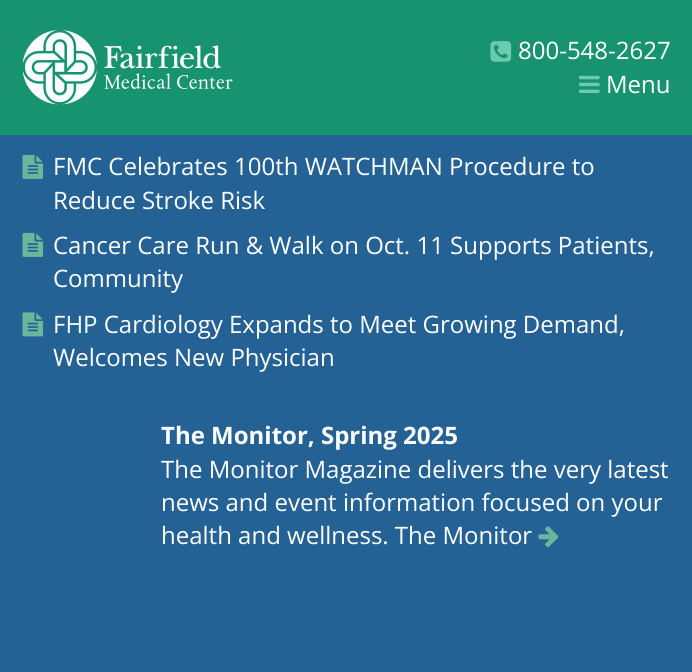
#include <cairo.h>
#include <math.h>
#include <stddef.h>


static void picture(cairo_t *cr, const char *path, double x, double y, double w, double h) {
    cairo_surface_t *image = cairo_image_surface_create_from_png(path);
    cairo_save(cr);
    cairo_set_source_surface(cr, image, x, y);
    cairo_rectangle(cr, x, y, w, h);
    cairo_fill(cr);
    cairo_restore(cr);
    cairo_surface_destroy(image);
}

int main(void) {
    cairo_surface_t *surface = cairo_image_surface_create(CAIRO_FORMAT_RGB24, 692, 672);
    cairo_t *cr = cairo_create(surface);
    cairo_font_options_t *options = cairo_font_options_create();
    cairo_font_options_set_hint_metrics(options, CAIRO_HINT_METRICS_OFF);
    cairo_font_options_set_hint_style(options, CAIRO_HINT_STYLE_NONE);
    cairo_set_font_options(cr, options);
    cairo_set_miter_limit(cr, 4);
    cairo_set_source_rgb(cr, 0.141, 0.38, 0.58);
    cairo_paint(cr);
    cairo_set_source_rgb(cr, 0.09, 0.58, 0.435);
    cairo_rectangle(cr, 0, 0, 692, 135);
    cairo_fill(cr);
    picture(cr, "img1.png", 23, 30, 210, 75);
    picture(cr, "img2.png", 490, 41, 22, 21);
    cairo_select_font_face(cr, "Open Sans", CAIRO_FONT_SLANT_NORMAL, CAIRO_FONT_WEIGHT_NORMAL);
    cairo_set_font_size(cr, 24);
    cairo_set_source_rgb(cr, 1, 1, 1);
    cairo_move_to(cr, 518, 59);
    cairo_show_text(cr, "800-548-2627");
    picture(cr, "img3.png", 579, 75, 21, 18);
    cairo_move_to(cr, 606, 93);
    cairo_show_text(cr, "Menu");
    picture(cr, "img4.png", 22, 154, 22, 25);
    cairo_move_to(cr, 53, 175);
    cairo_show_text(cr, "FMC Celebrates 100th WATCHMAN Procedure to");
    cairo_move_to(cr, 53, 209);
    cairo_show_text(cr, "Reduce Stroke Risk");
    picture(cr, "img4.png", 22, 232, 22, 25);
    cairo_move_to(cr, 53, 254);
    cairo_show_text(cr, "Cancer Care Run & Walk on Oct. 11 Supports Patients,");
    cairo_move_to(cr, 53, 287);
    cairo_show_text(cr, "Community");
    picture(cr, "img5.png", 22, 312, 22, 25);
    cairo_move_to(cr, 53, 333);
    cairo_show_text(cr, "FHP Cardiology Expands to Meet Growing Demand,");
    cairo_move_to(cr, 53, 366);
    cairo_show_text(cr, "Welcomes New Physician");
    cairo_select_font_face(cr, "Open Sans", CAIRO_FONT_SLANT_NORMAL, CAIRO_FONT_WEIGHT_BOLD);
    cairo_move_to(cr, 161, 444);
    cairo_show_text(cr, "The Monitor, Spring 2025");
    cairo_select_font_face(cr, "Open Sans", CAIRO_FONT_SLANT_NORMAL, CAIRO_FONT_WEIGHT_NORMAL);
    cairo_move_to(cr, 161, 478);
    cairo_show_text(cr, "The Monitor Magazine delivers the very latest");
    cairo_move_to(cr, 161, 511);
    cairo_show_text(cr, "news and event information focused on your");
    cairo_move_to(cr, 161, 544);
    cairo_show_text(cr, "health and wellness. The Monitor");
    picture(cr, "img6.png", 538, 526, 21, 22);
    cairo_surface_write_to_png(surface, "page.png");
    cairo_font_options_destroy(options);
    cairo_destroy(cr);
    cairo_surface_destroy(surface);
    return 0;
}
